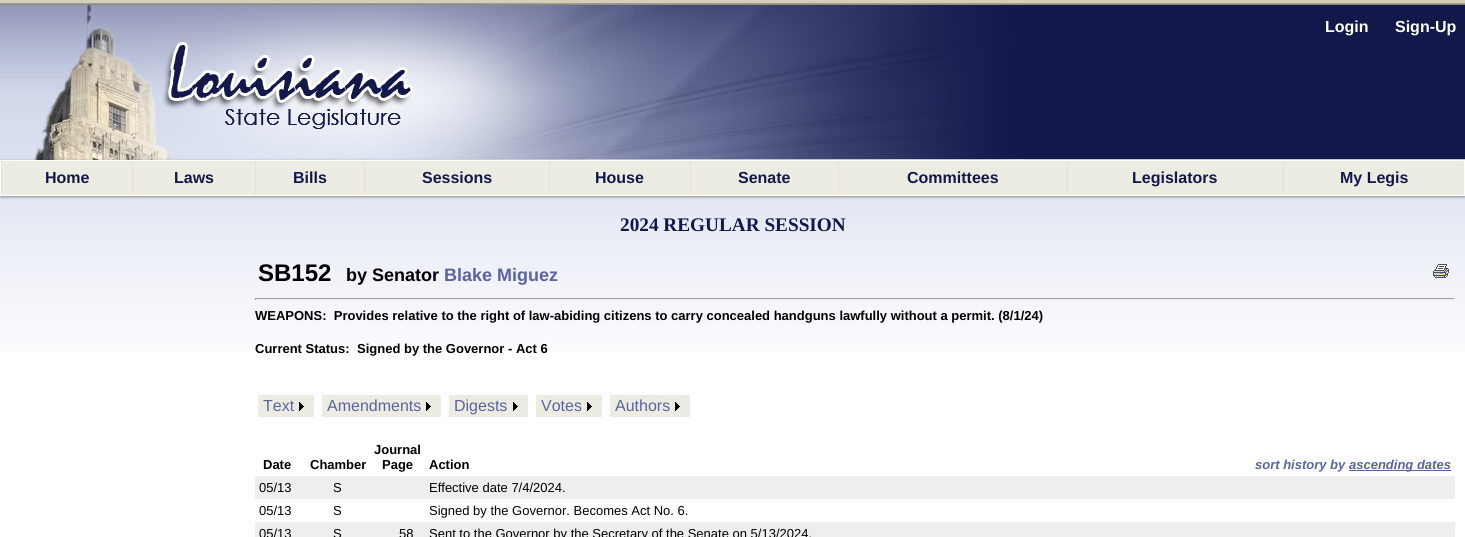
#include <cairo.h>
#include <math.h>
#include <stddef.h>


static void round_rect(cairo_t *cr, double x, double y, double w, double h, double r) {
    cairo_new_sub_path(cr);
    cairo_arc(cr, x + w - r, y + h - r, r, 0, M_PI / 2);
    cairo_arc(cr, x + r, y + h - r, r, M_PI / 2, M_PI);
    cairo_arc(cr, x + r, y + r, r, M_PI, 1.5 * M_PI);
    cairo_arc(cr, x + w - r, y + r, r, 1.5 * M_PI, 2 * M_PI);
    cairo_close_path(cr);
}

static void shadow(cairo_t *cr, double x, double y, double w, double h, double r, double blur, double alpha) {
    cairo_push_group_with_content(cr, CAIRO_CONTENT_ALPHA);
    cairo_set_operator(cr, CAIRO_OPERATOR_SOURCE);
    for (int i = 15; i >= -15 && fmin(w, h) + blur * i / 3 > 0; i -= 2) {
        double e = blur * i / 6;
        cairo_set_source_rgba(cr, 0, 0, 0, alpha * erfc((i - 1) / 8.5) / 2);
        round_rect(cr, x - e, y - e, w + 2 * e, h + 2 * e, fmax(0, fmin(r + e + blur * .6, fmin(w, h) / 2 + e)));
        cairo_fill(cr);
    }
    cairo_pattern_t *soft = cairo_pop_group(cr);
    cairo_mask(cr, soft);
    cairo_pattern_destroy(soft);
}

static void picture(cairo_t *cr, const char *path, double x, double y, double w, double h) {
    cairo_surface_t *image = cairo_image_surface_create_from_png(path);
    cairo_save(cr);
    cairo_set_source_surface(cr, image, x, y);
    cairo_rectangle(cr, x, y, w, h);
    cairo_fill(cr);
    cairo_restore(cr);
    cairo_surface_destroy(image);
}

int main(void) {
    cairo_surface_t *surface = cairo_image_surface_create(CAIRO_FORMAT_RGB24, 1465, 537);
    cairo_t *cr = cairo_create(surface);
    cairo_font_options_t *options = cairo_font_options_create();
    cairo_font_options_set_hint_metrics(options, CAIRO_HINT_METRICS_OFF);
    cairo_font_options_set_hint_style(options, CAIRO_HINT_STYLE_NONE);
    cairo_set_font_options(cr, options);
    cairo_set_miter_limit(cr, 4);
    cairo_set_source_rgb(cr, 1, 1, 1);
    cairo_paint(cr);
    picture(cr, "img1.png", 0, 0, 1465, 351);
    picture(cr, "img2.png", 0, 5, 1024, 155);
    cairo_select_font_face(cr, "Liberation Sans", CAIRO_FONT_SLANT_NORMAL, CAIRO_FONT_WEIGHT_BOLD);
    cairo_set_font_size(cr, 16);
    cairo_set_source_rgb(cr, 1, 1, 1);
    cairo_move_to(cr, 1325, 32);
    cairo_show_text(cr, "Login");
    cairo_move_to(cr, 1395, 32);
    cairo_show_text(cr, "Sign-Up");
    cairo_set_source_rgb(cr, 0, 0, 0);
    shadow(cr, 0, 161, 1465, 36, 0, 1.5, 0.4);
    cairo_set_source_rgb(cr, 0.929, 0.925, 0.89);
    cairo_rectangle(cr, 2, 161, 1462, 34);
    cairo_fill(cr);
    cairo_rectangle(cr, 0.5, 160.5, 1464, 35);
    cairo_set_source_rgb(cr, 1, 1, 1);
    cairo_set_line_width(cr, 1);
    cairo_stroke(cr);
    cairo_set_source_rgb(cr, 0.882, 0.875, 0.839);
    cairo_rectangle(cr, 1, 161, 1, 34);
    cairo_fill(cr);
    cairo_set_source_rgb(cr, 0.075, 0.094, 0.29);
    cairo_move_to(cr, 45, 183);
    cairo_show_text(cr, "Home");
    cairo_set_source_rgb(cr, 0.882, 0.875, 0.839);
    cairo_rectangle(cr, 132, 161, 1, 34);
    cairo_fill(cr);
    cairo_set_source_rgb(cr, 0.075, 0.094, 0.29);
    cairo_move_to(cr, 174, 183);
    cairo_show_text(cr, "Laws");
    cairo_set_source_rgb(cr, 0.882, 0.875, 0.839);
    cairo_rectangle(cr, 255, 161, 1, 34);
    cairo_fill(cr);
    cairo_set_source_rgb(cr, 0.075, 0.094, 0.29);
    cairo_move_to(cr, 293, 183);
    cairo_show_text(cr, "Bills");
    cairo_set_source_rgb(cr, 0.882, 0.875, 0.839);
    cairo_rectangle(cr, 364, 161, 1, 34);
    cairo_fill(cr);
    cairo_set_source_rgb(cr, 0.075, 0.094, 0.29);
    cairo_move_to(cr, 422, 183);
    cairo_show_text(cr, "Sessions");
    cairo_set_source_rgb(cr, 0.882, 0.875, 0.839);
    cairo_rectangle(cr, 549, 161, 1, 34);
    cairo_fill(cr);
    cairo_set_source_rgb(cr, 0.075, 0.094, 0.29);
    cairo_move_to(cr, 595, 183);
    cairo_show_text(cr, "House");
    cairo_set_source_rgb(cr, 0.882, 0.875, 0.839);
    cairo_rectangle(cr, 690, 161, 1, 34);
    cairo_fill(cr);
    cairo_set_source_rgb(cr, 0.075, 0.094, 0.29);
    cairo_move_to(cr, 738, 183);
    cairo_show_text(cr, "Senate");
    cairo_set_source_rgb(cr, 0.882, 0.875, 0.839);
    cairo_rectangle(cr, 838, 161, 1, 34);
    cairo_fill(cr);
    cairo_set_source_rgb(cr, 0.075, 0.094, 0.29);
    cairo_move_to(cr, 907, 183);
    cairo_show_text(cr, "Committees");
    cairo_set_source_rgb(cr, 0.882, 0.875, 0.839);
    cairo_rectangle(cr, 1067, 161, 1, 34);
    cairo_fill(cr);
    cairo_set_source_rgb(cr, 0.075, 0.094, 0.29);
    cairo_move_to(cr, 1132, 183);
    cairo_show_text(cr, "Legislators");
    cairo_set_source_rgb(cr, 0.882, 0.875, 0.839);
    cairo_rectangle(cr, 1283, 161, 1, 34);
    cairo_fill(cr);
    cairo_set_source_rgb(cr, 0.075, 0.094, 0.29);
    cairo_move_to(cr, 1340, 183);
    cairo_show_text(cr, "My Legis");
    cairo_select_font_face(cr, "Liberation Serif", CAIRO_FONT_SLANT_NORMAL, CAIRO_FONT_WEIGHT_BOLD);
    cairo_set_font_size(cr, 19.25);
    cairo_move_to(cr, 620, 231);
    cairo_show_text(cr, "2024 REGULAR SESSION");
    cairo_select_font_face(cr, "Liberation Sans", CAIRO_FONT_SLANT_NORMAL, CAIRO_FONT_WEIGHT_BOLD);
    cairo_set_font_size(cr, 24);
    cairo_set_source_rgb(cr, 0, 0, 0);
    cairo_move_to(cr, 258, 281);
    cairo_show_text(cr, "SB152");
    cairo_set_font_size(cr, 18);
    cairo_move_to(cr, 346, 281);
    cairo_show_text(cr, "by Senator");
    cairo_set_source_rgb(cr, 0.357, 0.388, 0.631);
    cairo_move_to(cr, 444, 281);
    cairo_show_text(cr, "Blake Miguez");
    picture(cr, "img3.png", 1433, 264, 16, 14);
    cairo_set_source_rgb(cr, 0.624, 0.624, 0.624);
    cairo_rectangle(cr, 255, 298, 1200, 1);
    cairo_fill(cr);
    cairo_set_source_rgb(cr, 0.933, 0.933, 0.933);
    cairo_rectangle(cr, 1454, 298, 1, 2);
    cairo_fill(cr);
    cairo_rectangle(cr, 255, 299, 1200, 1);
    cairo_fill(cr);
    cairo_set_source_rgb(cr, 0.624, 0.624, 0.624);
    cairo_rectangle(cr, 255, 298, 1, 2);
    cairo_fill(cr);
    cairo_set_font_size(cr, 13);
    cairo_set_source_rgb(cr, 0, 0, 0);
    cairo_move_to(cr, 255, 320);
    cairo_show_text(cr, "WEAPONS:  Provides relative to the right of law-abiding citizens to carry concealed handguns lawfully without a permit. (8/1/24)");
    cairo_move_to(cr, 255, 353);
    cairo_show_text(cr, "Current Status:");
    cairo_move_to(cr, 357, 353);
    cairo_show_text(cr, "Signed by the Governor - Act 6");
    cairo_set_source_rgb(cr, 0.929, 0.925, 0.886);
    cairo_rectangle(cr, 258, 395, 56, 22);
    cairo_fill(cr);
    cairo_select_font_face(cr, "Liberation Sans", CAIRO_FONT_SLANT_NORMAL, CAIRO_FONT_WEIGHT_NORMAL);
    cairo_set_font_size(cr, 16);
    cairo_set_source_rgb(cr, 0.357, 0.388, 0.631);
    cairo_move_to(cr, 263, 411);
    cairo_show_text(cr, "Text");
    picture(cr, "img4.png", 299, 402, 5, 9);
    cairo_set_source_rgb(cr, 0.929, 0.925, 0.886);
    cairo_rectangle(cr, 322, 395, 119, 22);
    cairo_fill(cr);
    cairo_set_source_rgb(cr, 0.357, 0.388, 0.631);
    cairo_move_to(cr, 327, 411);
    cairo_show_text(cr, "Amendments");
    picture(cr, "img4.png", 426, 402, 5, 9);
    cairo_set_source_rgb(cr, 0.929, 0.925, 0.886);
    cairo_rectangle(cr, 449, 395, 79, 22);
    cairo_fill(cr);
    cairo_set_source_rgb(cr, 0.357, 0.388, 0.631);
    cairo_move_to(cr, 454, 411);
    cairo_show_text(cr, "Digests");
    picture(cr, "img4.png", 513, 402, 5, 9);
    cairo_set_source_rgb(cr, 0.929, 0.925, 0.886);
    cairo_rectangle(cr, 536, 395, 66, 22);
    cairo_fill(cr);
    cairo_set_source_rgb(cr, 0.357, 0.388, 0.631);
    cairo_move_to(cr, 541, 411);
    cairo_show_text(cr, "Votes");
    picture(cr, "img4.png", 587, 402, 5, 9);
    cairo_set_source_rgb(cr, 0.929, 0.925, 0.886);
    cairo_rectangle(cr, 610, 395, 80, 22);
    cairo_fill(cr);
    cairo_set_source_rgb(cr, 0.357, 0.388, 0.631);
    cairo_move_to(cr, 615, 411);
    cairo_show_text(cr, "Authors");
    picture(cr, "img4.png", 675, 402, 5, 9);
    cairo_select_font_face(cr, "Liberation Sans", CAIRO_FONT_SLANT_NORMAL, CAIRO_FONT_WEIGHT_BOLD);
    cairo_set_font_size(cr, 13);
    cairo_set_source_rgb(cr, 0, 0, 0);
    cairo_move_to(cr, 263, 469);
    cairo_show_text(cr, "Date");
    cairo_move_to(cr, 310, 469);
    cairo_show_text(cr, "Chamber");
    cairo_move_to(cr, 374, 454);
    cairo_show_text(cr, "Journal");
    cairo_move_to(cr, 382, 469);
    cairo_show_text(cr, "Page");
    cairo_move_to(cr, 429, 469);
    cairo_show_text(cr, "Action");
    cairo_select_font_face(cr, "Liberation Sans", CAIRO_FONT_SLANT_ITALIC, CAIRO_FONT_WEIGHT_BOLD);
    cairo_set_source_rgb(cr, 0.357, 0.388, 0.631);
    cairo_move_to(cr, 1255, 469);
    cairo_show_text(cr, "sort history by");
    cairo_rectangle(cr, 1349, 470, 102, 1);
    cairo_fill(cr);
    cairo_move_to(cr, 1349, 469);
    cairo_show_text(cr, "ascending dates");
    cairo_set_source_rgb(cr, 0.933, 0.933, 0.933);
    cairo_rectangle(cr, 255, 476, 1200, 23);
    cairo_fill(cr);
    cairo_select_font_face(cr, "Liberation Sans", CAIRO_FONT_SLANT_NORMAL, CAIRO_FONT_WEIGHT_NORMAL);
    cairo_set_source_rgb(cr, 0, 0, 0);
    cairo_move_to(cr, 259, 492);
    cairo_show_text(cr, "05/13");
    cairo_move_to(cr, 333, 492);
    cairo_show_text(cr, "S");
    cairo_move_to(cr, 429, 492);
    cairo_show_text(cr, "Effective date 7/4/2024.");
    cairo_move_to(cr, 259, 515);
    cairo_show_text(cr, "05/13");
    cairo_move_to(cr, 333, 515);
    cairo_show_text(cr, "S");
    cairo_move_to(cr, 429, 515);
    cairo_show_text(cr, "Signed by the Governor. Becomes Act No. 6.");
    cairo_set_source_rgb(cr, 0.933, 0.933, 0.933);
    cairo_rectangle(cr, 255, 522, 1200, 15);
    cairo_fill(cr);
    cairo_set_source_rgb(cr, 0, 0, 0);
    cairo_move_to(cr, 259, 538);
    cairo_show_text(cr, "05/13");
    cairo_move_to(cr, 333, 538);
    cairo_show_text(cr, "S");
    cairo_move_to(cr, 399, 538);
    cairo_show_text(cr, "58");
    cairo_move_to(cr, 429, 538);
    cairo_show_text(cr, "Sent to the Governor by the Secretary of the Senate on 5/13/2024.");
    cairo_surface_write_to_png(surface, "page.png");
    cairo_font_options_destroy(options);
    cairo_destroy(cr);
    cairo_surface_destroy(surface);
    return 0;
}
